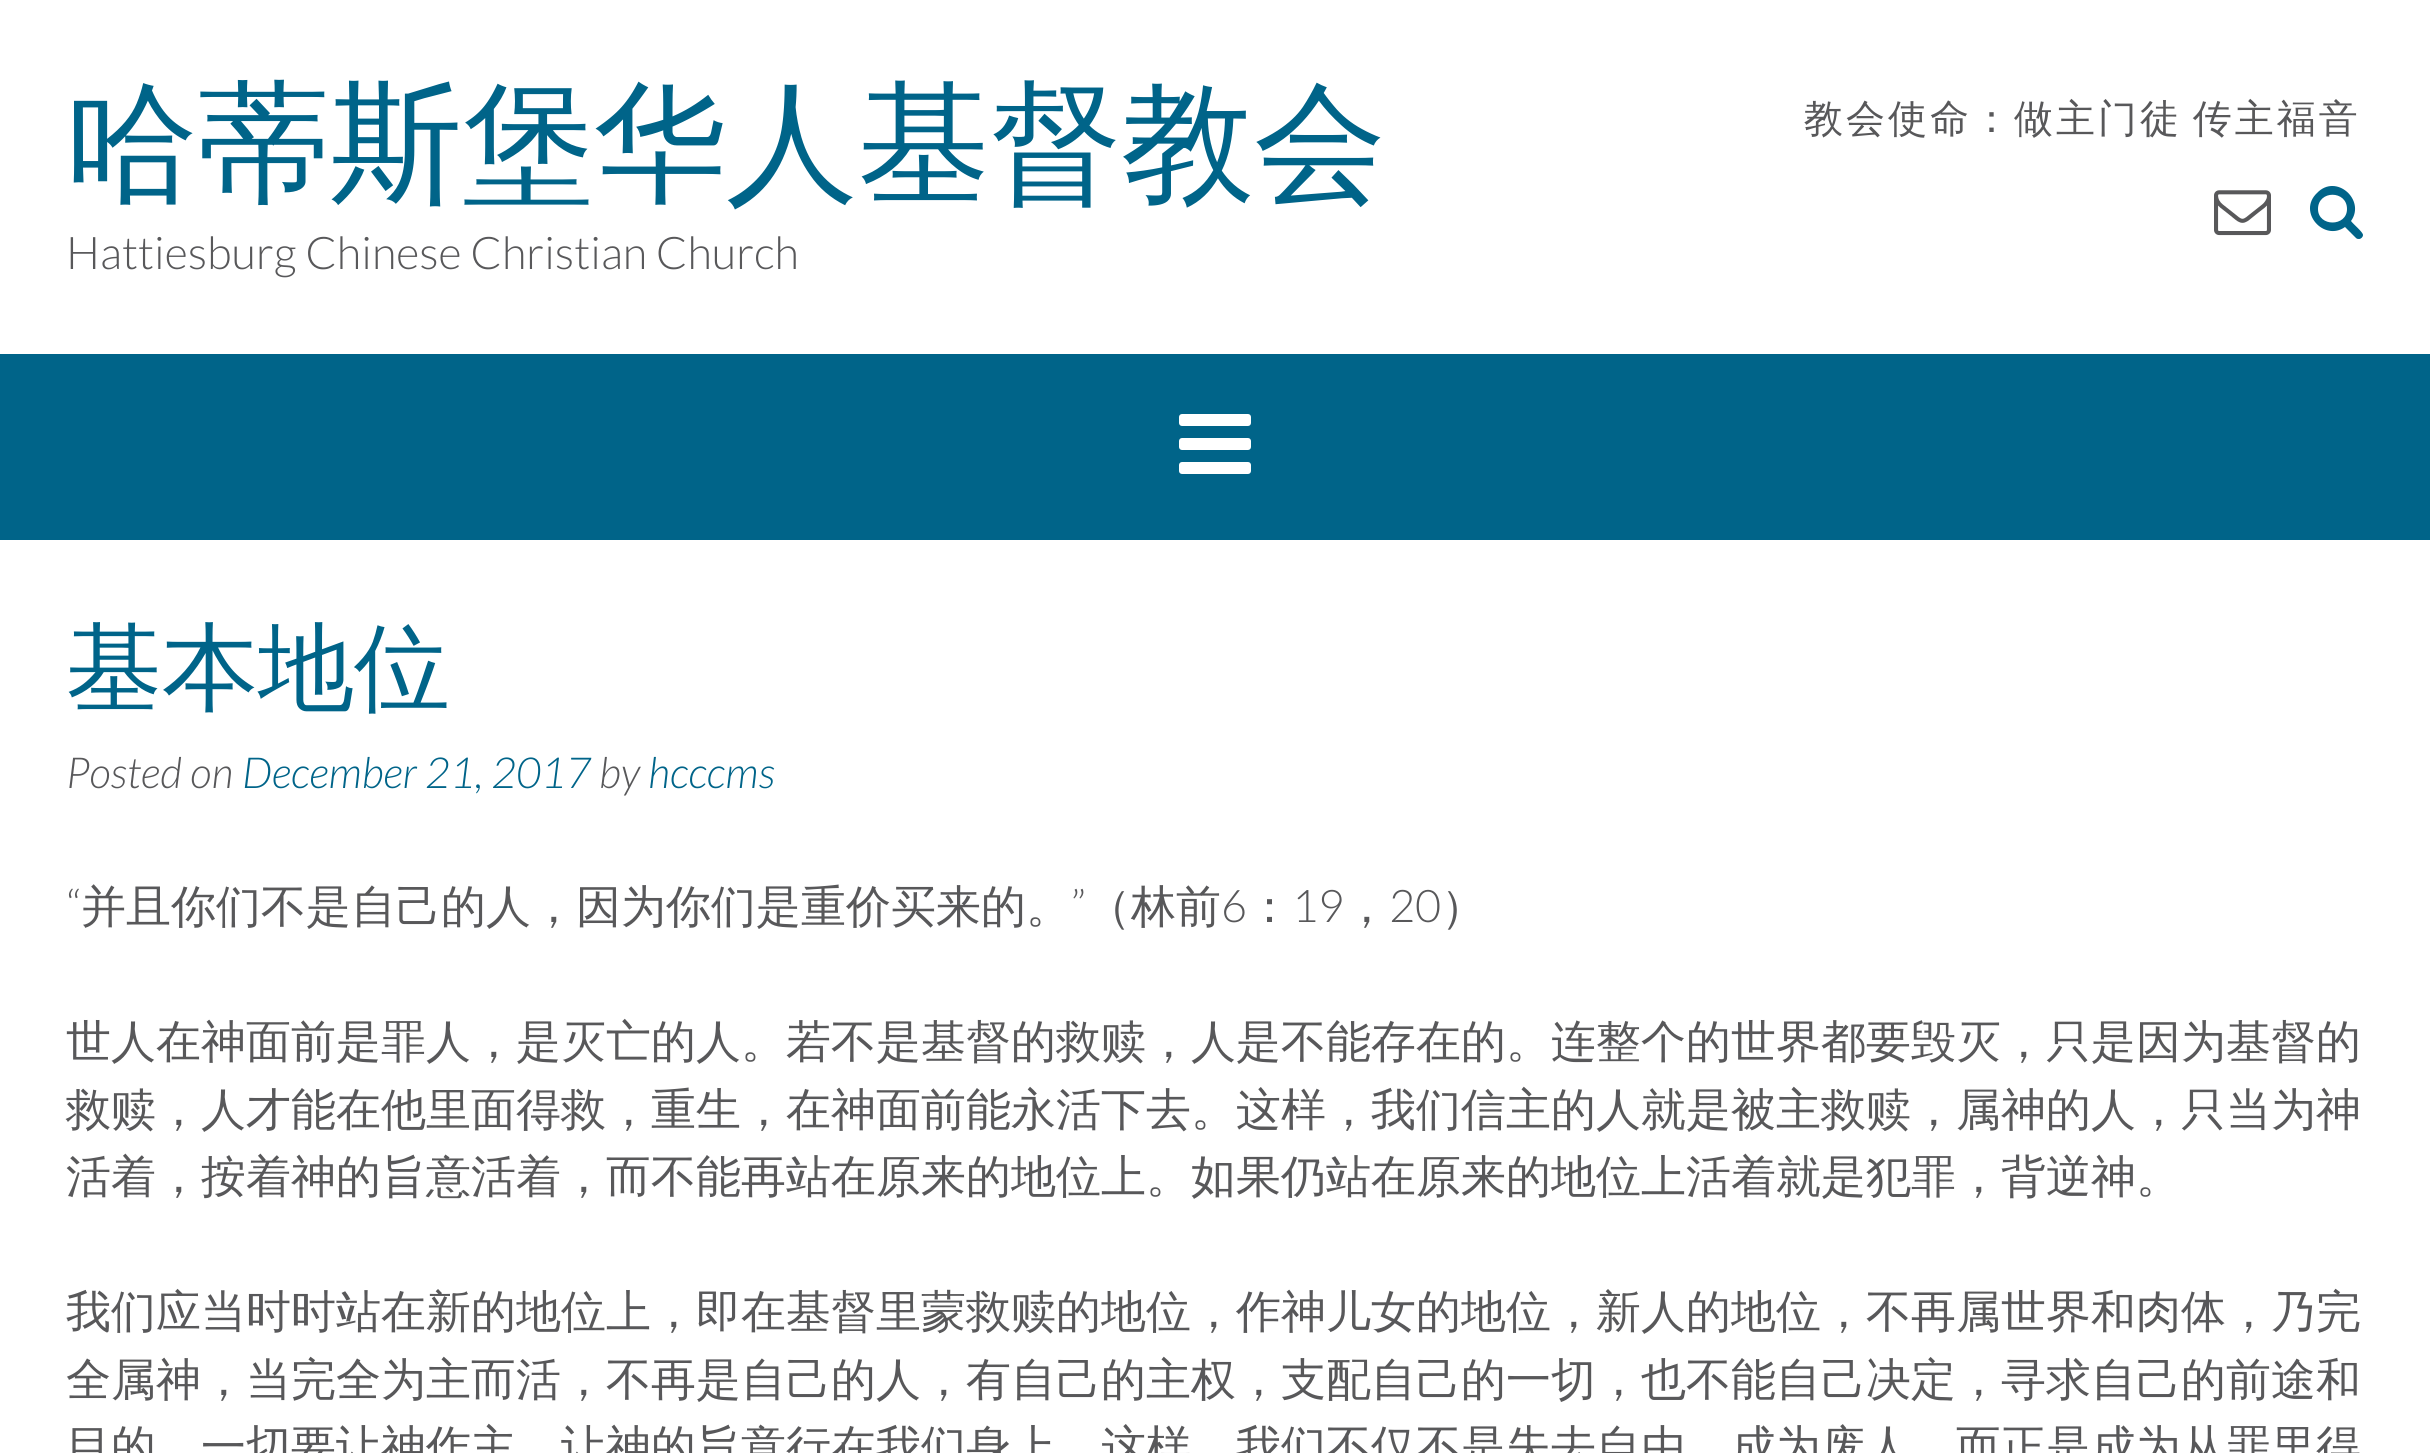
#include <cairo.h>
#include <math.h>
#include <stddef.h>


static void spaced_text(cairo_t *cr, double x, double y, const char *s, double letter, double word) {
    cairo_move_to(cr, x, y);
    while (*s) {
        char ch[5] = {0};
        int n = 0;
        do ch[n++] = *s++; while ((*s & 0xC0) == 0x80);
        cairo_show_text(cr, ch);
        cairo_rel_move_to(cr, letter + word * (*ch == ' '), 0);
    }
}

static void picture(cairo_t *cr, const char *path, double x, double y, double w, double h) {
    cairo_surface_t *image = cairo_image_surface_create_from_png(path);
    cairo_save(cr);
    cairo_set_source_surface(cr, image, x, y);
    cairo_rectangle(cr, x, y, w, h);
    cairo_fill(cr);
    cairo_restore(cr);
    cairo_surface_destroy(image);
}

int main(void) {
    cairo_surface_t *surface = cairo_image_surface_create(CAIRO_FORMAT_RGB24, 2430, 1453);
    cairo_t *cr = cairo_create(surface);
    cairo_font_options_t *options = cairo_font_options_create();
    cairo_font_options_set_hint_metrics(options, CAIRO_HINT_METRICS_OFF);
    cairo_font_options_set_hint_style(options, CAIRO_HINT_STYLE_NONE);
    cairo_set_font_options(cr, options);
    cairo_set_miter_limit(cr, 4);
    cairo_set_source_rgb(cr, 1, 1, 1);
    cairo_paint(cr);
    cairo_select_font_face(cr, "WenQuanYi Zen Hei Medium", CAIRO_FONT_SLANT_NORMAL, CAIRO_FONT_WEIGHT_NORMAL);
    cairo_set_font_size(cr, 132);
    cairo_set_source_rgb(cr, 0, 0.392, 0.537);
    cairo_move_to(cr, 66, 189);
    cairo_show_text(cr, "哈蒂斯堡华人基督教会");
    cairo_select_font_face(cr, "Lato Light", CAIRO_FONT_SLANT_NORMAL, CAIRO_FONT_WEIGHT_NORMAL);
    cairo_set_font_size(cr, 45);
    cairo_set_source_rgb(cr, 0.345, 0.345, 0.353);
    cairo_move_to(cr, 66, 269);
    cairo_show_text(cr, "Hattiesburg Chinese Christian Church");
    cairo_select_font_face(cr, "WenQuanYi Zen Hei Medium", CAIRO_FONT_SLANT_NORMAL, CAIRO_FONT_WEIGHT_NORMAL);
    cairo_set_font_size(cr, 39);
    spaced_text(cr, 1804, 132, "教会使命：做主门徒 传主福音", 3, -4);
    picture(cr, "img1.png", 2214, 190, 57, 46);
    cairo_set_source_rgb(cr, 0, 0.392, 0.537);
    cairo_new_path(cr);
    cairo_move_to(cr, 2347, 209);
    cairo_curve_to(cr, 2347, 227, 2318, 227, 2318, 209);
    cairo_curve_to(cr, 2318, 190, 2347, 190, 2347, 209);
    cairo_close_path(cr);
    cairo_move_to(cr, 2363, 235);
    cairo_curve_to(cr, 2363, 232, 2353, 224, 2351, 221);
    cairo_curve_to(cr, 2366, 200, 2336, 173, 2317, 193);
    cairo_curve_to(cr, 2297, 212, 2324, 242, 2345, 227);
    cairo_line_to(cr, 2356, 238);
    cairo_curve_to(cr, 2357, 239, 2358, 239, 2359, 239);
    cairo_curve_to(cr, 2361, 239, 2363, 237, 2363, 235);
    cairo_close_path(cr);
    cairo_fill(cr);
    cairo_rectangle(cr, 0, 354, 2430, 186);
    cairo_fill(cr);
    picture(cr, "img2.png", 1179, 414, 72, 60);
    cairo_set_font_size(cr, 96);
    cairo_move_to(cr, 66, 701);
    cairo_show_text(cr, "基本地位");
    cairo_select_font_face(cr, "Lato Light", CAIRO_FONT_SLANT_ITALIC, CAIRO_FONT_WEIGHT_NORMAL);
    cairo_set_font_size(cr, 42.75);
    cairo_set_source_rgb(cr, 0.345, 0.345, 0.353);
    cairo_move_to(cr, 66, 788);
    cairo_show_text(cr, "Posted on");
    cairo_set_source_rgb(cr, 0, 0.392, 0.537);
    cairo_move_to(cr, 242, 788);
    cairo_show_text(cr, "December 21, 2017");
    cairo_set_source_rgb(cr, 0.345, 0.345, 0.353);
    cairo_move_to(cr, 599, 788);
    cairo_show_text(cr, "by");
    cairo_set_source_rgb(cr, 0, 0.392, 0.537);
    cairo_move_to(cr, 648, 788);
    cairo_show_text(cr, "hcccms");
    cairo_select_font_face(cr, "Lato Light", CAIRO_FONT_SLANT_NORMAL, CAIRO_FONT_WEIGHT_NORMAL);
    cairo_set_font_size(cr, 45);
    cairo_set_source_rgb(cr, 0.345, 0.345, 0.353);
    cairo_move_to(cr, 66, 922);
    cairo_show_text(cr, "“");
    cairo_select_font_face(cr, "WenQuanYi Zen Hei Medium", CAIRO_FONT_SLANT_NORMAL, CAIRO_FONT_WEIGHT_NORMAL);
    cairo_move_to(cr, 81, 922);
    cairo_show_text(cr, "并且你们不是自己的人，因为你们是重价买来的。");
    cairo_select_font_face(cr, "Lato Light", CAIRO_FONT_SLANT_NORMAL, CAIRO_FONT_WEIGHT_NORMAL);
    cairo_move_to(cr, 1071, 922);
    cairo_show_text(cr, "”");
    cairo_select_font_face(cr, "WenQuanYi Zen Hei Medium", CAIRO_FONT_SLANT_NORMAL, CAIRO_FONT_WEIGHT_NORMAL);
    cairo_move_to(cr, 1086, 922);
    cairo_show_text(cr, "（林前");
    cairo_select_font_face(cr, "Lato Light", CAIRO_FONT_SLANT_NORMAL, CAIRO_FONT_WEIGHT_NORMAL);
    cairo_move_to(cr, 1221, 922);
    cairo_show_text(cr, "6");
    cairo_select_font_face(cr, "WenQuanYi Zen Hei Medium", CAIRO_FONT_SLANT_NORMAL, CAIRO_FONT_WEIGHT_NORMAL);
    cairo_move_to(cr, 1247, 922);
    cairo_show_text(cr, "：");
    cairo_select_font_face(cr, "Lato Light", CAIRO_FONT_SLANT_NORMAL, CAIRO_FONT_WEIGHT_NORMAL);
    cairo_move_to(cr, 1292, 922);
    cairo_show_text(cr, "19");
    cairo_select_font_face(cr, "WenQuanYi Zen Hei Medium", CAIRO_FONT_SLANT_NORMAL, CAIRO_FONT_WEIGHT_NORMAL);
    cairo_move_to(cr, 1344, 922);
    cairo_show_text(cr, "，");
    cairo_select_font_face(cr, "Lato Light", CAIRO_FONT_SLANT_NORMAL, CAIRO_FONT_WEIGHT_NORMAL);
    cairo_move_to(cr, 1389, 922);
    cairo_show_text(cr, "20");
    cairo_select_font_face(cr, "WenQuanYi Zen Hei Medium", CAIRO_FONT_SLANT_NORMAL, CAIRO_FONT_WEIGHT_NORMAL);
    cairo_move_to(cr, 1441, 922);
    cairo_show_text(cr, "）");
    cairo_move_to(cr, 66, 1057);
    cairo_show_text(cr, "世人在神面前是罪人，是灭亡的人。若不是基督的救赎，人是不能存在的。连整个的世界都要毁灭，只是因为基督的");
    cairo_move_to(cr, 66, 1125);
    cairo_show_text(cr, "救赎，人才能在他里面得救，重生，在神面前能永活下去。这样，我们信主的人就是被主救赎，属神的人，只当为神");
    cairo_move_to(cr, 66, 1192);
    cairo_show_text(cr, "活着，按着神的旨意活着，而不能再站在原来的地位上。如果仍站在原来的地位上活着就是犯罪，背逆神。");
    cairo_move_to(cr, 66, 1327);
    cairo_show_text(cr, "我们应当时时站在新的地位上，即在基督里蒙救赎的地位，作神儿女的地位，新人的地位，不再属世界和肉体，乃完");
    cairo_move_to(cr, 66, 1395);
    cairo_show_text(cr, "全属神，当完全为主而活，不再是自己的人，有自己的主权，支配自己的一切，也不能自己决定，寻求自己的前途和");
    cairo_move_to(cr, 66, 1462);
    cairo_show_text(cr, "目的，一切要让神作主，让神的旨意行在我们身上。这样，我们不仅不是失去自由，成为废人，而正是成为从罪里得");
    cairo_surface_write_to_png(surface, "page.png");
    cairo_font_options_destroy(options);
    cairo_destroy(cr);
    cairo_surface_destroy(surface);
    return 0;
}
